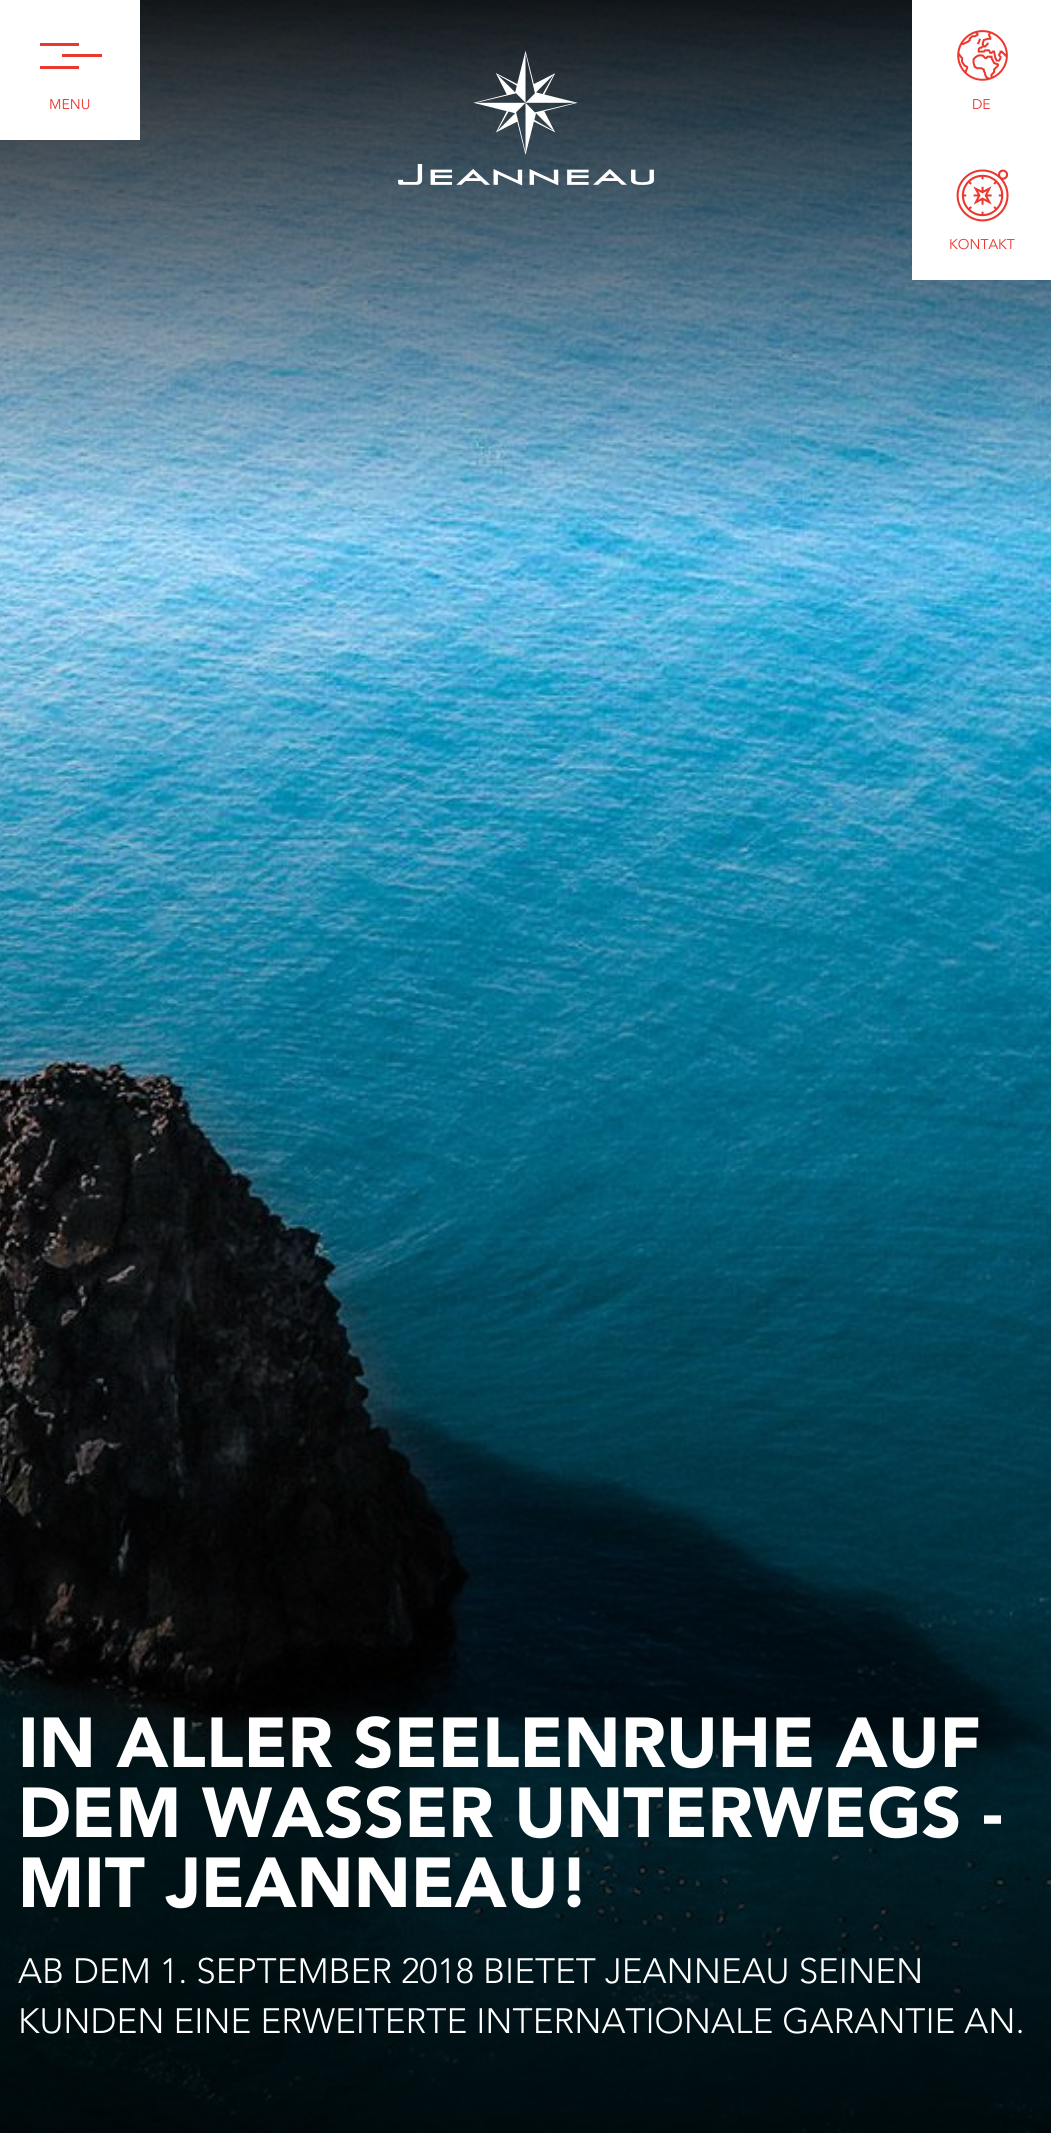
#include <cairo.h>
#include <math.h>
#include <stddef.h>


static void picture(cairo_t *cr, const char *path, double x, double y, double w, double h) {
    cairo_surface_t *image = cairo_image_surface_create_from_png(path);
    cairo_save(cr);
    cairo_set_source_surface(cr, image, x, y);
    cairo_rectangle(cr, x, y, w, h);
    cairo_fill(cr);
    cairo_restore(cr);
    cairo_surface_destroy(image);
}

int main(void) {
    cairo_surface_t *surface = cairo_image_surface_create(CAIRO_FORMAT_RGB24, 1051, 2133);
    cairo_t *cr = cairo_create(surface);
    cairo_font_options_t *options = cairo_font_options_create();
    cairo_font_options_set_hint_metrics(options, CAIRO_HINT_METRICS_OFF);
    cairo_font_options_set_hint_style(options, CAIRO_HINT_STYLE_NONE);
    cairo_set_font_options(cr, options);
    cairo_set_miter_limit(cr, 4);
    cairo_set_source_rgb(cr, 1, 1, 1);
    cairo_paint(cr);
    picture(cr, "img4.png", 0, 0, 1051, 2133);
    cairo_set_source_rgb(cr, 1, 1, 1);
    cairo_rectangle(cr, 0, 0, 140, 140);
    cairo_fill(cr);
    cairo_set_source_rgb(cr, 0.922, 0.216, 0.18);
    cairo_new_path(cr);
    cairo_move_to(cr, 40, 43);
    cairo_line_to(cr, 79, 43);
    cairo_line_to(cr, 79, 46);
    cairo_line_to(cr, 40, 46);
    cairo_close_path(cr);
    cairo_move_to(cr, 62, 54);
    cairo_line_to(cr, 102, 54);
    cairo_line_to(cr, 102, 57);
    cairo_line_to(cr, 62, 57);
    cairo_close_path(cr);
    cairo_move_to(cr, 40, 66);
    cairo_line_to(cr, 79, 66);
    cairo_line_to(cr, 79, 69);
    cairo_line_to(cr, 40, 69);
    cairo_close_path(cr);
    cairo_fill(cr);
    cairo_select_font_face(cr, "Avenir", CAIRO_FONT_SLANT_NORMAL, CAIRO_FONT_WEIGHT_NORMAL);
    cairo_set_font_size(cr, 14);
    cairo_move_to(cr, 49, 109);
    cairo_show_text(cr, "MENU");
    picture(cr, "img1.png", 398, 51, 256, 135);
    cairo_set_source_rgb(cr, 1, 1, 1);
    cairo_rectangle(cr, 912, 0, 139, 280);
    cairo_fill(cr);
    picture(cr, "img2.png", 957, 30, 51, 51);
    cairo_set_source_rgb(cr, 0.922, 0.216, 0.18);
    cairo_move_to(cr, 972, 109);
    cairo_show_text(cr, "DE");
    picture(cr, "img3.png", 956, 169, 53, 53);
    cairo_move_to(cr, 949, 249);
    cairo_show_text(cr, "KONTAKT");
    cairo_select_font_face(cr, "Avenir", CAIRO_FONT_SLANT_NORMAL, CAIRO_FONT_WEIGHT_BOLD);
    cairo_set_font_size(cr, 70);
    cairo_set_source_rgb(cr, 1, 1, 1);
    cairo_move_to(cr, 18, 1767);
    cairo_show_text(cr, "IN ALLER SEELENRUHE AUF");
    cairo_move_to(cr, 18, 1837);
    cairo_show_text(cr, "DEM WASSER UNTERWEGS -");
    cairo_move_to(cr, 18, 1907);
    cairo_show_text(cr, "MIT JEANNEAU!");
    cairo_select_font_face(cr, "Avenir Light", CAIRO_FONT_SLANT_NORMAL, CAIRO_FONT_WEIGHT_NORMAL);
    cairo_set_font_size(cr, 35);
    cairo_move_to(cr, 18, 1983);
    cairo_show_text(cr, "AB DEM 1. SEPTEMBER 2018 BIETET JEANNEAU SEINEN");
    cairo_move_to(cr, 18, 2033);
    cairo_show_text(cr, "KUNDEN EINE ERWEITERTE INTERNATIONALE GARANTIE AN.");
    cairo_surface_write_to_png(surface, "page.png");
    cairo_font_options_destroy(options);
    cairo_destroy(cr);
    cairo_surface_destroy(surface);
    return 0;
}
